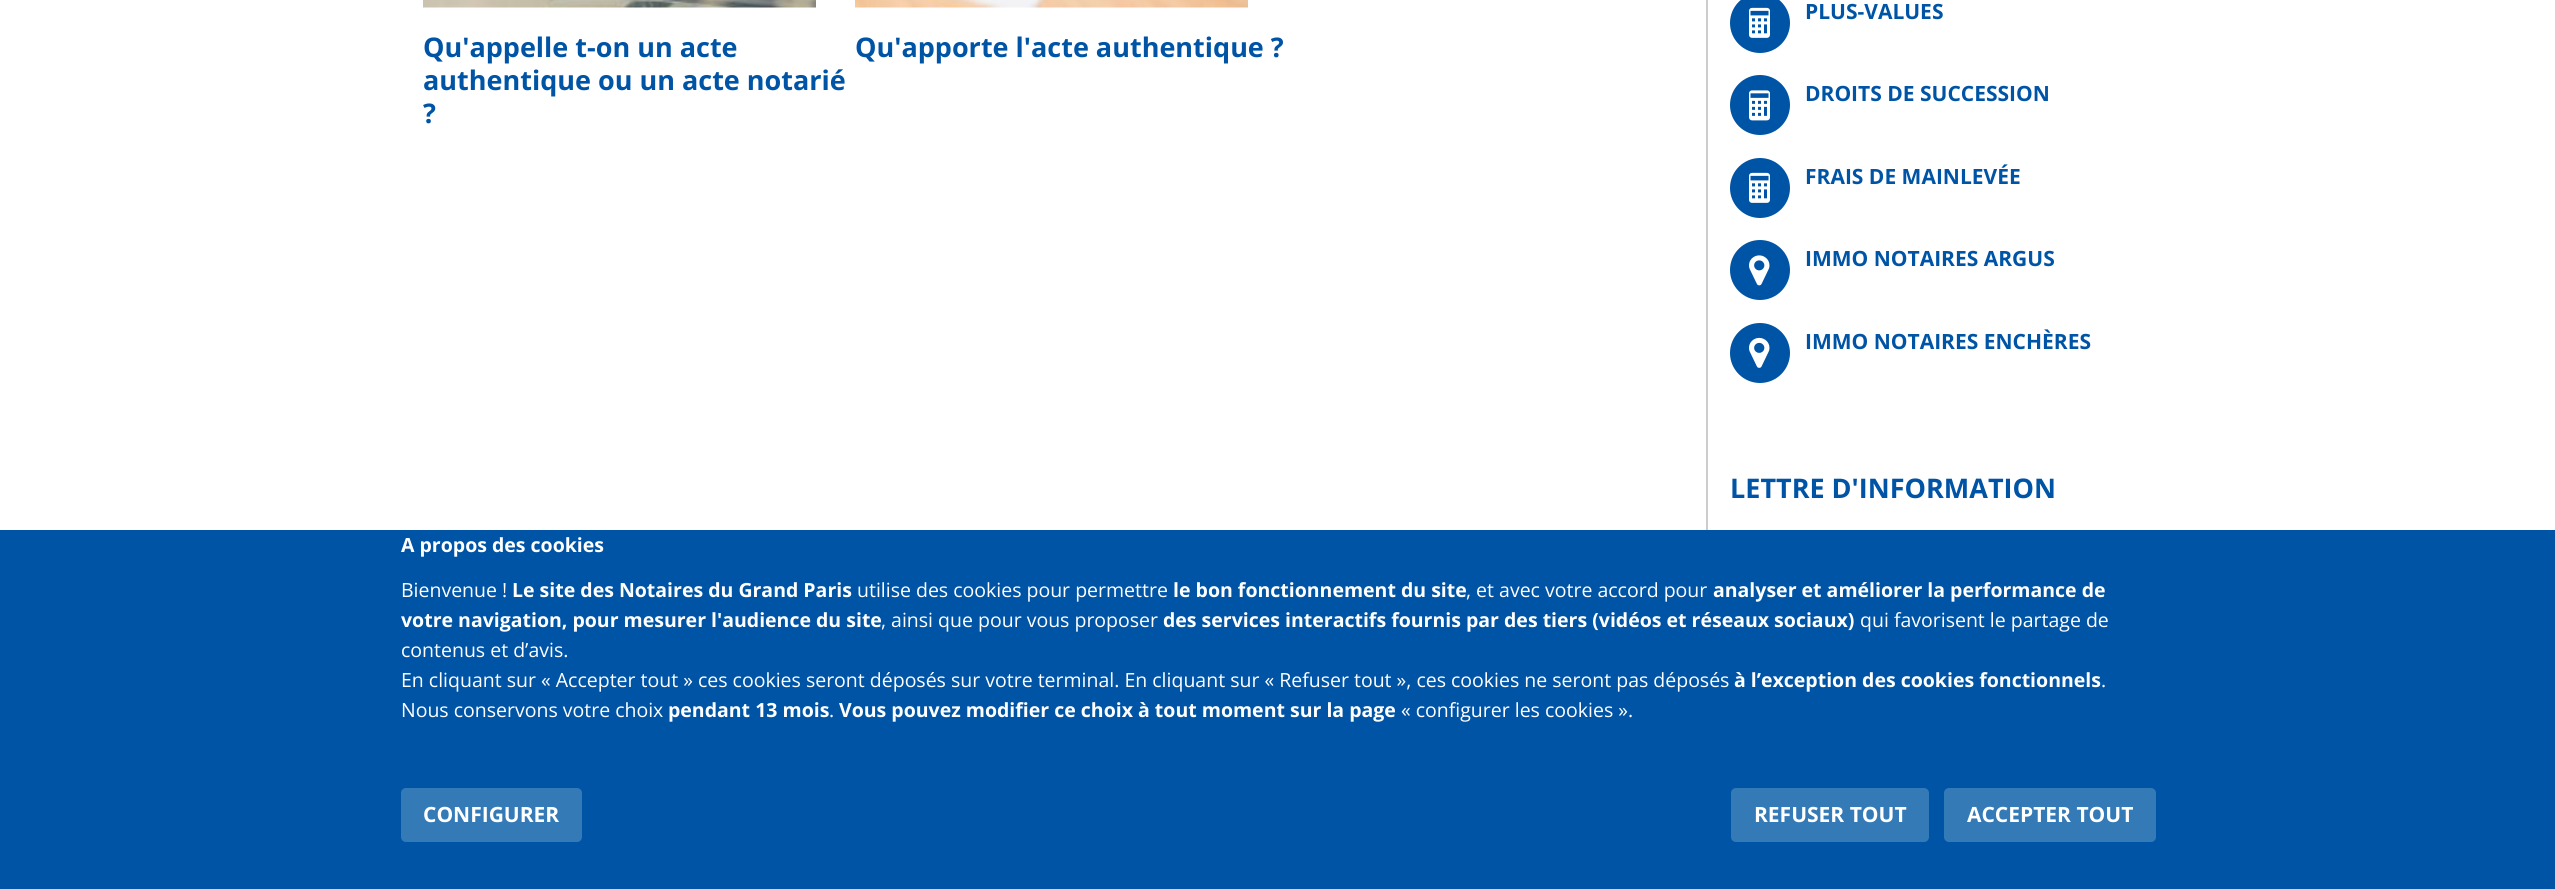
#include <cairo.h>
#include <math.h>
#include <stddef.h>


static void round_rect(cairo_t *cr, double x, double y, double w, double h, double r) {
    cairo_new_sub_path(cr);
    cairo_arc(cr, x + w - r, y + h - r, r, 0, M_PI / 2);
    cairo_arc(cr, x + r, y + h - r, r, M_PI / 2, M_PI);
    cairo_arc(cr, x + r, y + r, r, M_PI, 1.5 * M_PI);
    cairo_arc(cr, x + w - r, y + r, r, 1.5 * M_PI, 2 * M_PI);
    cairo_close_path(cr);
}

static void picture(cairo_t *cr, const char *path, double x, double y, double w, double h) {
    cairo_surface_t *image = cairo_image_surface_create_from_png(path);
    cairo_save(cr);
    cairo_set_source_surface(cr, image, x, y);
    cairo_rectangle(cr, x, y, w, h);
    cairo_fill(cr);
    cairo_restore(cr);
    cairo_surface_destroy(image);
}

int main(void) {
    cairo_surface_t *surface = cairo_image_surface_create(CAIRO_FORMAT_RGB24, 2555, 889);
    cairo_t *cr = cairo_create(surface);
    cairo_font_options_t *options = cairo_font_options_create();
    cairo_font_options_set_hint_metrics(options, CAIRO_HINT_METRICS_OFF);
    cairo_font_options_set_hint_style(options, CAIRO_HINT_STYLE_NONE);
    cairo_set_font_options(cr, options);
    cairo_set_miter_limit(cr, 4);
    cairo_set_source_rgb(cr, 1, 1, 1);
    cairo_paint(cr);
    picture(cr, "img1.png", 423, 0, 393, 8);
    cairo_select_font_face(cr, "Open Sans", CAIRO_FONT_SLANT_NORMAL, CAIRO_FONT_WEIGHT_BOLD);
    cairo_set_font_size(cr, 27);
    cairo_set_source_rgb(cr, 0, 0.329, 0.651);
    cairo_move_to(cr, 423, 57);
    cairo_show_text(cr, "Qu'appelle t-on un acte");
    cairo_move_to(cr, 423, 90);
    cairo_show_text(cr, "authentique ou un acte notarié");
    cairo_move_to(cr, 423, 123);
    cairo_show_text(cr, "?");
    picture(cr, "img2.png", 855, 0, 393, 8);
    cairo_move_to(cr, 855, 57);
    cairo_show_text(cr, "Qu'apporte l'acte authentique ?");
    cairo_set_source_rgb(cr, 0.8, 0.8, 0.8);
    cairo_rectangle(cr, 1706, 0, 2, 530);
    cairo_fill(cr);
    cairo_set_source_rgb(cr, 0, 0.329, 0.651);
    cairo_arc(cr, 1760, 23, 30, 0, 2 * M_PI);
    cairo_fill(cr);
    picture(cr, "img3.png", 1749, 7, 21, 31);
    cairo_set_font_size(cr, 21);
    cairo_move_to(cr, 1805, 19);
    cairo_show_text(cr, "PLUS-VALUES");
    cairo_new_path(cr);
    cairo_arc(cr, 1760, 105, 30, 0, 2 * M_PI);
    cairo_fill(cr);
    picture(cr, "img4.png", 1749, 90, 21, 31);
    cairo_move_to(cr, 1805, 101);
    cairo_show_text(cr, "DROITS DE SUCCESSION");
    cairo_new_path(cr);
    cairo_arc(cr, 1760, 188, 30, 0, 2 * M_PI);
    cairo_fill(cr);
    picture(cr, "img3.png", 1749, 172, 21, 31);
    cairo_move_to(cr, 1805, 184);
    cairo_show_text(cr, "FRAIS DE MAINLEVÉE");
    cairo_new_path(cr);
    cairo_arc(cr, 1760, 270, 30, 0, 2 * M_PI);
    cairo_fill(cr);
    picture(cr, "img5.png", 1749, 255, 21, 31);
    cairo_move_to(cr, 1805, 266);
    cairo_show_text(cr, "IMMO NOTAIRES ARGUS");
    cairo_new_path(cr);
    cairo_arc(cr, 1760, 353, 30, 0, 2 * M_PI);
    cairo_fill(cr);
    picture(cr, "img6.png", 1749, 337, 21, 31);
    cairo_move_to(cr, 1805, 349);
    cairo_show_text(cr, "IMMO NOTAIRES ENCHÈRES");
    cairo_set_font_size(cr, 27);
    cairo_move_to(cr, 1730, 498);
    cairo_show_text(cr, "LETTRE D'INFORMATION");
    cairo_rectangle(cr, 0, 530, 2555, 359);
    cairo_fill(cr);
    cairo_set_font_size(cr, 19.5);
    cairo_set_source_rgb(cr, 1, 1, 1);
    cairo_move_to(cr, 401, 552);
    cairo_show_text(cr, "A propos des cookies");
    cairo_select_font_face(cr, "Open Sans", CAIRO_FONT_SLANT_NORMAL, CAIRO_FONT_WEIGHT_NORMAL);
    cairo_move_to(cr, 401, 597);
    cairo_show_text(cr, "Bienvenue !");
    cairo_select_font_face(cr, "Open Sans", CAIRO_FONT_SLANT_NORMAL, CAIRO_FONT_WEIGHT_BOLD);
    cairo_move_to(cr, 512, 597);
    cairo_show_text(cr, "Le site des Notaires du Grand Paris");
    cairo_select_font_face(cr, "Open Sans", CAIRO_FONT_SLANT_NORMAL, CAIRO_FONT_WEIGHT_NORMAL);
    cairo_move_to(cr, 857, 597);
    cairo_show_text(cr, "utilise des cookies pour permettre");
    cairo_select_font_face(cr, "Open Sans", CAIRO_FONT_SLANT_NORMAL, CAIRO_FONT_WEIGHT_BOLD);
    cairo_move_to(cr, 1173, 597);
    cairo_show_text(cr, "le bon fonctionnement du site");
    cairo_select_font_face(cr, "Open Sans", CAIRO_FONT_SLANT_NORMAL, CAIRO_FONT_WEIGHT_NORMAL);
    cairo_move_to(cr, 1466, 597);
    cairo_show_text(cr, ", et avec votre accord pour");
    cairo_select_font_face(cr, "Open Sans", CAIRO_FONT_SLANT_NORMAL, CAIRO_FONT_WEIGHT_BOLD);
    cairo_move_to(cr, 1713, 597);
    cairo_show_text(cr, "analyser et améliorer la performance de");
    cairo_move_to(cr, 401, 627);
    cairo_show_text(cr, "votre navigation, pour mesurer l'audience du site");
    cairo_select_font_face(cr, "Open Sans", CAIRO_FONT_SLANT_NORMAL, CAIRO_FONT_WEIGHT_NORMAL);
    cairo_move_to(cr, 881, 627);
    cairo_show_text(cr, ", ainsi que pour vous proposer");
    cairo_select_font_face(cr, "Open Sans", CAIRO_FONT_SLANT_NORMAL, CAIRO_FONT_WEIGHT_BOLD);
    cairo_move_to(cr, 1163, 627);
    cairo_show_text(cr, "des services interactifs fournis par des tiers (vidéos et réseaux sociaux)");
    cairo_select_font_face(cr, "Open Sans", CAIRO_FONT_SLANT_NORMAL, CAIRO_FONT_WEIGHT_NORMAL);
    cairo_move_to(cr, 1860, 627);
    cairo_show_text(cr, "qui favorisent le partage de");
    cairo_move_to(cr, 401, 657);
    cairo_show_text(cr, "contenus et d’avis.");
    cairo_move_to(cr, 401, 687);
    cairo_show_text(cr, "En cliquant sur « Accepter tout » ces cookies seront déposés sur votre terminal. En cliquant sur « Refuser tout », ces cookies ne seront pas déposés");
    cairo_select_font_face(cr, "Open Sans", CAIRO_FONT_SLANT_NORMAL, CAIRO_FONT_WEIGHT_BOLD);
    cairo_move_to(cr, 1734, 687);
    cairo_show_text(cr, "à l’exception des cookies fonctionnels");
    cairo_select_font_face(cr, "Open Sans", CAIRO_FONT_SLANT_NORMAL, CAIRO_FONT_WEIGHT_NORMAL);
    cairo_move_to(cr, 2101, 687);
    cairo_show_text(cr, ".");
    cairo_move_to(cr, 401, 717);
    cairo_show_text(cr, "Nous conservons votre choix");
    cairo_select_font_face(cr, "Open Sans", CAIRO_FONT_SLANT_NORMAL, CAIRO_FONT_WEIGHT_BOLD);
    cairo_move_to(cr, 668, 717);
    cairo_show_text(cr, "pendant 13 mois");
    cairo_select_font_face(cr, "Open Sans", CAIRO_FONT_SLANT_NORMAL, CAIRO_FONT_WEIGHT_NORMAL);
    cairo_move_to(cr, 829, 717);
    cairo_show_text(cr, ".");
    cairo_select_font_face(cr, "Open Sans", CAIRO_FONT_SLANT_NORMAL, CAIRO_FONT_WEIGHT_BOLD);
    cairo_move_to(cr, 839, 717);
    cairo_show_text(cr, "Vous pouvez modifier ce choix à tout moment sur la page");
    cairo_select_font_face(cr, "Open Sans", CAIRO_FONT_SLANT_NORMAL, CAIRO_FONT_WEIGHT_NORMAL);
    cairo_move_to(cr, 1401, 717);
    cairo_show_text(cr, "« configurer les cookies ».");
    cairo_set_source_rgb(cr, 0.2, 0.478, 0.718);
    round_rect(cr, 401, 788, 181, 54, 5);
    cairo_fill(cr);
    cairo_select_font_face(cr, "Open Sans", CAIRO_FONT_SLANT_NORMAL, CAIRO_FONT_WEIGHT_BOLD);
    cairo_set_font_size(cr, 21);
    cairo_set_source_rgb(cr, 1, 1, 1);
    cairo_move_to(cr, 423, 822);
    cairo_show_text(cr, "CONFIGURER");
    cairo_set_source_rgb(cr, 0.2, 0.478, 0.718);
    round_rect(cr, 1731, 788, 198, 54, 5);
    cairo_fill(cr);
    cairo_set_source_rgb(cr, 1, 1, 1);
    cairo_move_to(cr, 1754, 822);
    cairo_show_text(cr, "REFUSER TOUT");
    cairo_set_source_rgb(cr, 0.2, 0.478, 0.718);
    round_rect(cr, 1944, 788, 212, 54, 5);
    cairo_fill(cr);
    cairo_set_source_rgb(cr, 1, 1, 1);
    cairo_move_to(cr, 1967, 822);
    cairo_show_text(cr, "ACCEPTER TOUT");
    cairo_surface_write_to_png(surface, "page.png");
    cairo_font_options_destroy(options);
    cairo_destroy(cr);
    cairo_surface_destroy(surface);
    return 0;
}
